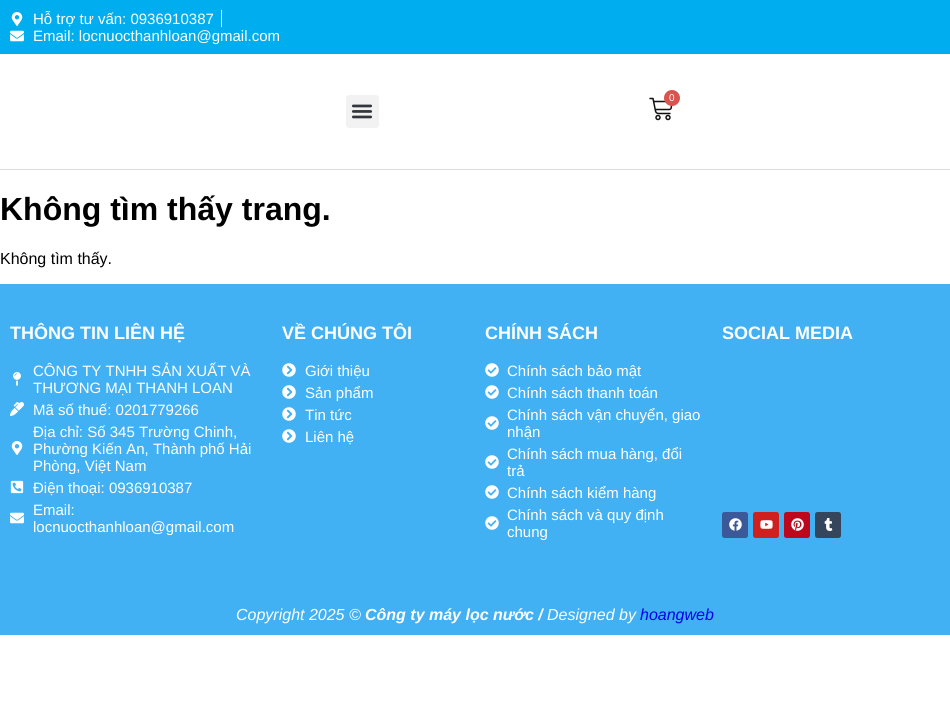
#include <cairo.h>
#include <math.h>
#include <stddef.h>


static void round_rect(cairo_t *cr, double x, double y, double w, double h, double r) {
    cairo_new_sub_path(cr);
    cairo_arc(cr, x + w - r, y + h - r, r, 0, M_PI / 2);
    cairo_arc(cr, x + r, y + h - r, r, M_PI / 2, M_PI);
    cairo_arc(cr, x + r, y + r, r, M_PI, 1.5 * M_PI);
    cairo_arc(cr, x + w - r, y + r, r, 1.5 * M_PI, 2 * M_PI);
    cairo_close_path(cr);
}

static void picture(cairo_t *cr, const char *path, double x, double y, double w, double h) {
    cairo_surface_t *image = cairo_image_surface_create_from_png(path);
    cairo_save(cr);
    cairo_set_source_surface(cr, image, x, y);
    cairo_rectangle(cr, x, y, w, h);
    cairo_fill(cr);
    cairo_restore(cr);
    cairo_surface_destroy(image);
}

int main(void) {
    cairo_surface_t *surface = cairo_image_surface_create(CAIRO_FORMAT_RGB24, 950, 719);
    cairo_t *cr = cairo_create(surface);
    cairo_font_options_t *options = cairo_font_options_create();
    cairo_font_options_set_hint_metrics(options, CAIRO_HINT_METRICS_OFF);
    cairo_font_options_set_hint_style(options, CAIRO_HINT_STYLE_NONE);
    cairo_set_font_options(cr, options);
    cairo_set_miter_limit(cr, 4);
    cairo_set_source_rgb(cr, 1, 1, 1);
    cairo_paint(cr);
    cairo_set_source_rgb(cr, 0, 0.682, 0.941);
    cairo_rectangle(cr, 0, 0, 950, 54);
    cairo_fill(cr);
    picture(cr, "img1.png", 11, 12, 12, 14);
    cairo_select_font_face(cr, "Liberation Sans", CAIRO_FONT_SLANT_NORMAL, CAIRO_FONT_WEIGHT_NORMAL);
    cairo_set_font_size(cr, 15);
    cairo_set_source_rgb(cr, 1, 1, 1);
    cairo_move_to(cr, 33, 24);
    cairo_show_text(cr, "Hỗ trợ tư vấn: 0936910387");
    cairo_rectangle(cr, 221, 10, 1, 17);
    cairo_fill(cr);
    picture(cr, "img2.png", 10, 30, 14, 12);
    cairo_move_to(cr, 33, 41);
    cairo_show_text(cr, "Email: locnuocthanhloan@gmail.com");
    cairo_set_source_rgb(cr, 0.867, 0.867, 0.867);
    cairo_rectangle(cr, 0, 169, 950, 1);
    cairo_fill(cr);
    cairo_set_source_rgb(cr, 0.949, 0.949, 0.949);
    round_rect(cr, 346, 95, 33, 33, 3);
    cairo_fill(cr);
    picture(cr, "img3.png", 351, 104, 22, 15);
    picture(cr, "img4.png", 649, 97, 24, 24);
    cairo_set_source_rgb(cr, 0.851, 0.325, 0.31);
    cairo_arc(cr, 672, 98, 8, 0, 2 * M_PI);
    cairo_fill(cr);
    cairo_set_font_size(cr, 10);
    cairo_set_source_rgb(cr, 1, 1, 1);
    cairo_move_to(cr, 669, 101);
    cairo_show_text(cr, "0");
    cairo_select_font_face(cr, "Liberation Sans", CAIRO_FONT_SLANT_NORMAL, CAIRO_FONT_WEIGHT_BOLD);
    cairo_set_font_size(cr, 32);
    cairo_set_source_rgb(cr, 0, 0, 0);
    cairo_move_to(cr, 0, 220);
    cairo_show_text(cr, "Không tìm thấy trang.");
    cairo_select_font_face(cr, "Liberation Sans", CAIRO_FONT_SLANT_NORMAL, CAIRO_FONT_WEIGHT_NORMAL);
    cairo_set_font_size(cr, 16);
    cairo_move_to(cr, 0, 264);
    cairo_show_text(cr, "Không tìm thấy.");
    cairo_set_source_rgb(cr, 0.255, 0.694, 0.957);
    cairo_rectangle(cr, 0, 284, 950, 351);
    cairo_fill(cr);
    cairo_select_font_face(cr, "Liberation Sans", CAIRO_FONT_SLANT_NORMAL, CAIRO_FONT_WEIGHT_BOLD);
    cairo_set_font_size(cr, 18);
    cairo_set_source_rgb(cr, 1, 1, 1);
    cairo_move_to(cr, 10, 339);
    cairo_show_text(cr, "THÔNG TIN LIÊN HỆ");
    picture(cr, "img5.png", 13, 372, 8, 14);
    cairo_select_font_face(cr, "Liberation Sans", CAIRO_FONT_SLANT_NORMAL, CAIRO_FONT_WEIGHT_NORMAL);
    cairo_set_font_size(cr, 15);
    cairo_move_to(cr, 33, 376);
    cairo_show_text(cr, "CÔNG TY TNHH SẢN XUẤT VÀ");
    cairo_move_to(cr, 33, 393);
    cairo_show_text(cr, "THƯƠNG MẠI THANH LOAN");
    picture(cr, "img6.png", 10, 402, 14, 14);
    cairo_move_to(cr, 33, 415);
    cairo_show_text(cr, "Mã số thuế: 0201779266");
    picture(cr, "img7.png", 11, 441, 12, 14);
    cairo_move_to(cr, 33, 437);
    cairo_show_text(cr, "Địa chỉ: Số 345 Trường Chinh,");
    cairo_move_to(cr, 33, 454);
    cairo_show_text(cr, "Phường Kiến An, Thành phố Hải");
    cairo_move_to(cr, 33, 471);
    cairo_show_text(cr, "Phòng, Việt Nam");
    picture(cr, "img8.png", 10, 480, 14, 14);
    cairo_move_to(cr, 33, 493);
    cairo_show_text(cr, "Điện thoại: 0936910387");
    picture(cr, "img9.png", 10, 512, 14, 12);
    cairo_move_to(cr, 33, 515);
    cairo_show_text(cr, "Email:");
    cairo_move_to(cr, 33, 532);
    cairo_show_text(cr, "locnuocthanhloan@gmail.com");
    cairo_select_font_face(cr, "Liberation Sans", CAIRO_FONT_SLANT_NORMAL, CAIRO_FONT_WEIGHT_BOLD);
    cairo_set_font_size(cr, 18);
    cairo_move_to(cr, 282, 339);
    cairo_show_text(cr, "VỀ CHÚNG TÔI");
    picture(cr, "img10.png", 282, 363, 14, 14);
    cairo_select_font_face(cr, "Liberation Sans", CAIRO_FONT_SLANT_NORMAL, CAIRO_FONT_WEIGHT_NORMAL);
    cairo_set_font_size(cr, 15);
    cairo_move_to(cr, 305, 376);
    cairo_show_text(cr, "Giới thiệu");
    picture(cr, "img10.png", 282, 385, 14, 14);
    cairo_move_to(cr, 305, 398);
    cairo_show_text(cr, "Sản phẩm");
    picture(cr, "img10.png", 282, 407, 14, 14);
    cairo_move_to(cr, 305, 420);
    cairo_show_text(cr, "Tin tức");
    picture(cr, "img10.png", 282, 429, 14, 14);
    cairo_move_to(cr, 305, 442);
    cairo_show_text(cr, "Liên hệ");
    cairo_select_font_face(cr, "Liberation Sans", CAIRO_FONT_SLANT_NORMAL, CAIRO_FONT_WEIGHT_BOLD);
    cairo_set_font_size(cr, 18);
    cairo_move_to(cr, 485, 339);
    cairo_show_text(cr, "CHÍNH SÁCH");
    picture(cr, "img11.png", 485, 363, 14, 14);
    cairo_select_font_face(cr, "Liberation Sans", CAIRO_FONT_SLANT_NORMAL, CAIRO_FONT_WEIGHT_NORMAL);
    cairo_set_font_size(cr, 15);
    cairo_move_to(cr, 507, 376);
    cairo_show_text(cr, "Chính sách bảo mật");
    picture(cr, "img11.png", 485, 385, 14, 14);
    cairo_move_to(cr, 507, 398);
    cairo_show_text(cr, "Chính sách thanh toán");
    picture(cr, "img11.png", 485, 416, 14, 14);
    cairo_move_to(cr, 507, 420);
    cairo_show_text(cr, "Chính sách vận chuyển, giao");
    cairo_move_to(cr, 507, 437);
    cairo_show_text(cr, "nhận");
    picture(cr, "img11.png", 485, 455, 14, 14);
    cairo_move_to(cr, 507, 459);
    cairo_show_text(cr, "Chính sách mua hàng, đổi");
    cairo_move_to(cr, 507, 476);
    cairo_show_text(cr, "trả");
    picture(cr, "img11.png", 485, 485, 14, 14);
    cairo_move_to(cr, 507, 498);
    cairo_show_text(cr, "Chính sách kiểm hàng");
    picture(cr, "img11.png", 485, 516, 14, 14);
    cairo_move_to(cr, 507, 520);
    cairo_show_text(cr, "Chính sách và quy định");
    cairo_move_to(cr, 507, 537);
    cairo_show_text(cr, "chung");
    cairo_select_font_face(cr, "Liberation Sans", CAIRO_FONT_SLANT_NORMAL, CAIRO_FONT_WEIGHT_BOLD);
    cairo_set_font_size(cr, 18);
    cairo_move_to(cr, 722, 339);
    cairo_show_text(cr, "SOCIAL MEDIA");
    cairo_set_source_rgb(cr, 0.231, 0.349, 0.596);
    round_rect(cr, 722, 512, 26, 26, 2.5);
    cairo_fill(cr);
    picture(cr, "img12.png", 729, 518, 13, 13);
    cairo_set_source_rgb(cr, 0.804, 0.125, 0.122);
    round_rect(cr, 753, 512, 26, 26, 2.5);
    cairo_fill(cr);
    picture(cr, "img13.png", 760, 520, 13, 9);
    cairo_set_source_rgb(cr, 0.741, 0.031, 0.11);
    round_rect(cr, 784, 512, 26, 26, 2.5);
    cairo_fill(cr);
    picture(cr, "img14.png", 791, 518, 13, 13);
    cairo_set_source_rgb(cr, 0.208, 0.275, 0.361);
    round_rect(cr, 815, 512, 26, 26, 2.5);
    cairo_fill(cr);
    picture(cr, "img15.png", 824, 518, 9, 13);
    cairo_select_font_face(cr, "Liberation Sans", CAIRO_FONT_SLANT_ITALIC, CAIRO_FONT_WEIGHT_NORMAL);
    cairo_set_font_size(cr, 16);
    cairo_set_source_rgb(cr, 1, 1, 1);
    cairo_move_to(cr, 236, 620);
    cairo_show_text(cr, "Copyright 2025 ©");
    cairo_select_font_face(cr, "Liberation Sans", CAIRO_FONT_SLANT_ITALIC, CAIRO_FONT_WEIGHT_BOLD);
    cairo_move_to(cr, 365, 620);
    cairo_show_text(cr, "Công ty máy lọc nước /");
    cairo_select_font_face(cr, "Liberation Sans", CAIRO_FONT_SLANT_ITALIC, CAIRO_FONT_WEIGHT_NORMAL);
    cairo_move_to(cr, 547, 620);
    cairo_show_text(cr, "Designed by");
    cairo_set_source_rgb(cr, 0, 0, 0.933);
    cairo_move_to(cr, 640, 620);
    cairo_show_text(cr, "hoangweb");
    cairo_surface_write_to_png(surface, "page.png");
    cairo_font_options_destroy(options);
    cairo_destroy(cr);
    cairo_surface_destroy(surface);
    return 0;
}
